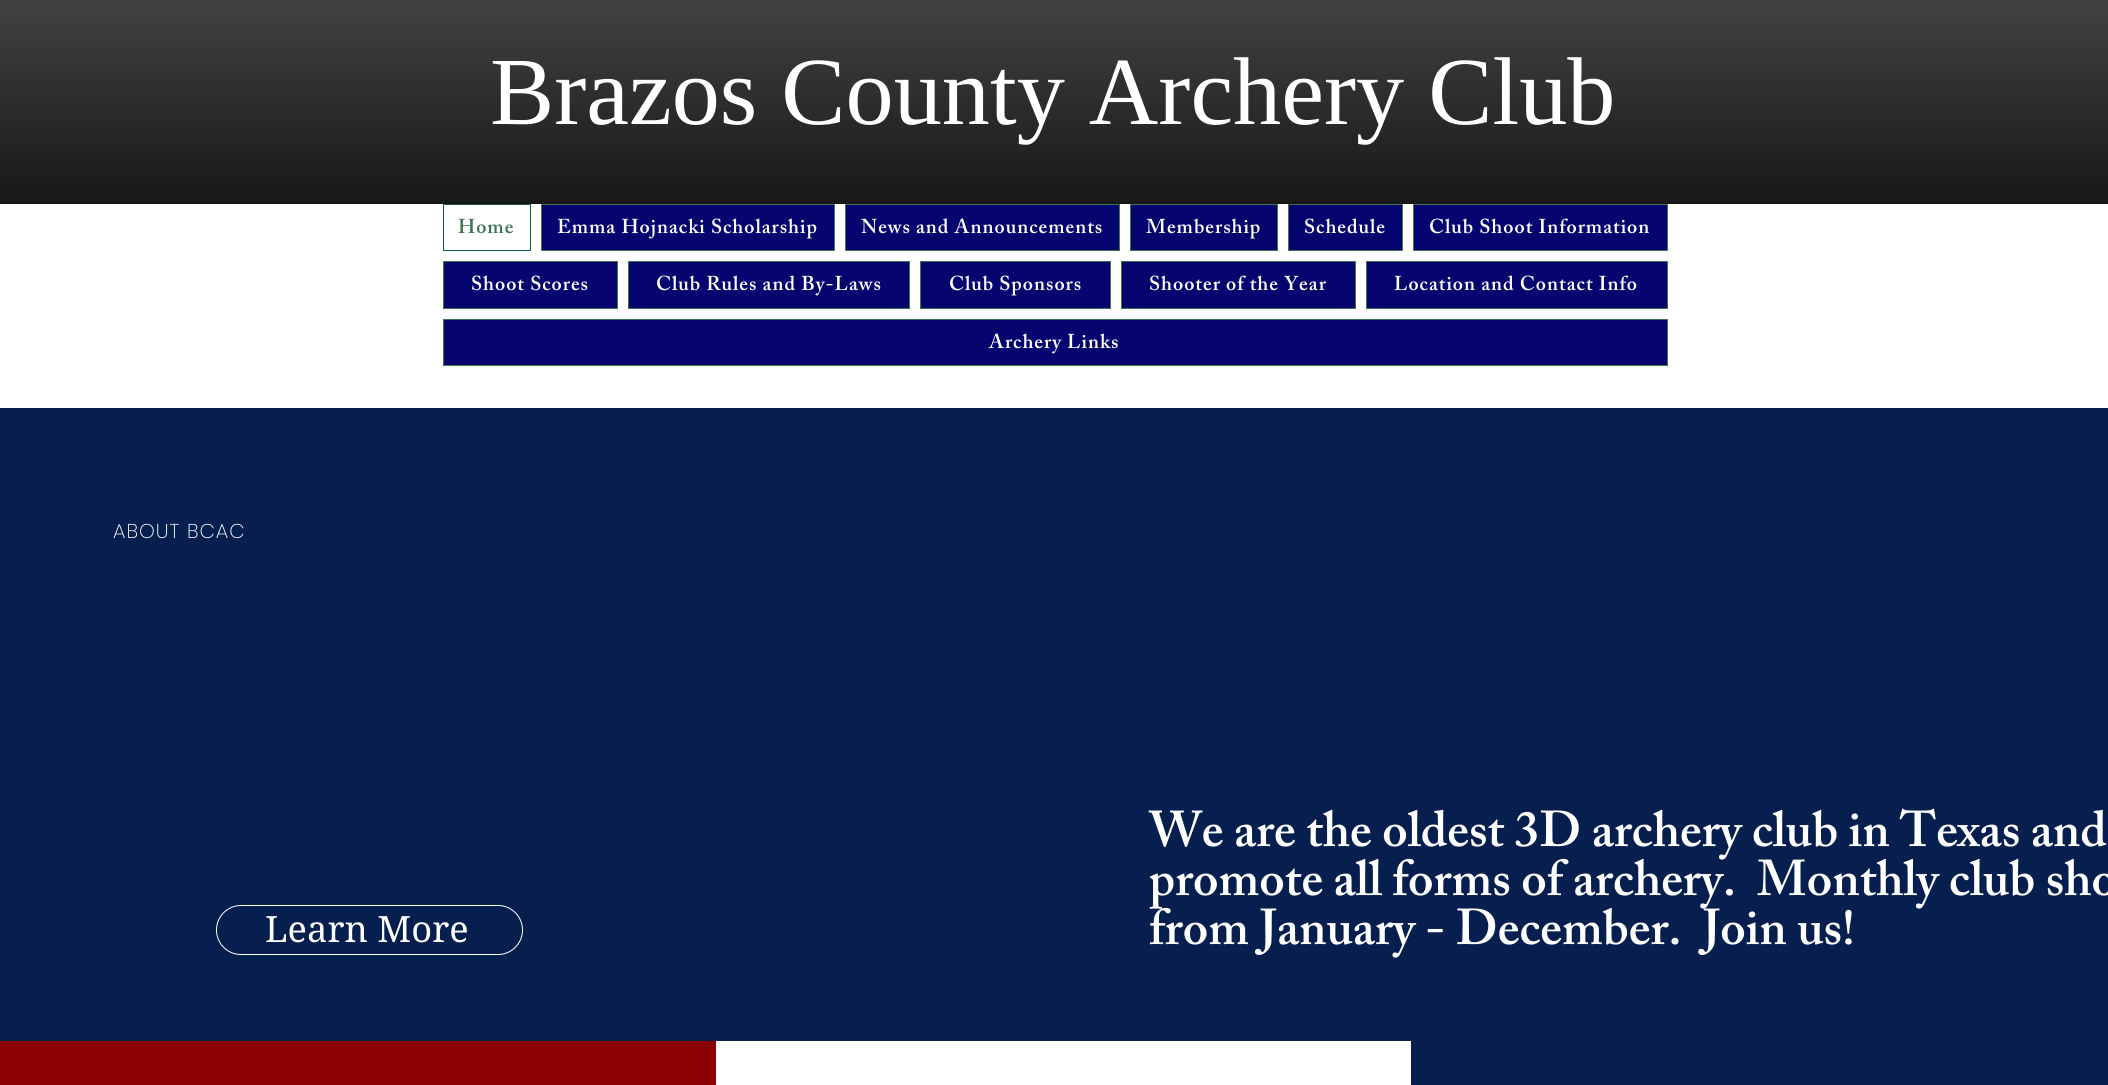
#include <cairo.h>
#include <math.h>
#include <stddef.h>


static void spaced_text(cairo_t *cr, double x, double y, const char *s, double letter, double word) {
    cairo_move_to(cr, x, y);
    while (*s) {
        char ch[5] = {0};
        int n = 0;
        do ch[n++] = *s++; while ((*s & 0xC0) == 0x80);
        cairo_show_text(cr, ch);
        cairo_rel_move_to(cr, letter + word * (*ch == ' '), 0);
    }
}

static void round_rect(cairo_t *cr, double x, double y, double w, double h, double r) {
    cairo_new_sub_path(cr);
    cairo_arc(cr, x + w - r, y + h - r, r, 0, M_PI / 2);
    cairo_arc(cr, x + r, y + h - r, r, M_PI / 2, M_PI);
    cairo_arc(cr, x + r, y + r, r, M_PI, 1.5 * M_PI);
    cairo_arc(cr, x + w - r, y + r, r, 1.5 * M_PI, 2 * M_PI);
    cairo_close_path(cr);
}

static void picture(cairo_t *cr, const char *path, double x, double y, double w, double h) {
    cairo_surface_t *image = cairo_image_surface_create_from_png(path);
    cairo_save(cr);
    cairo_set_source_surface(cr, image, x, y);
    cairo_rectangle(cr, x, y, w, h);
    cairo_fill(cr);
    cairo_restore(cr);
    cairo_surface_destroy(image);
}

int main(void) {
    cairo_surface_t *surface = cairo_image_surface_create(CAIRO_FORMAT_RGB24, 2108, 1085);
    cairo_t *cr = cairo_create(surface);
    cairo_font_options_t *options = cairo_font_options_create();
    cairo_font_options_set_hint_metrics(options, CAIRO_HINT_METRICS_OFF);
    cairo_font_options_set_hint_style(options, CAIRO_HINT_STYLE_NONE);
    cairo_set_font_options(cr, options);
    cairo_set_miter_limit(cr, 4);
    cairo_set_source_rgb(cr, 1, 1, 1);
    cairo_paint(cr);
    cairo_set_source_rgb(cr, 0, 0, 0);
    cairo_rectangle(cr, 0, 0, 2108, 204);
    cairo_fill(cr);
    picture(cr, "img1.png", 0, 0, 2108, 204);
    cairo_select_font_face(cr, "Liberation Serif", CAIRO_FONT_SLANT_NORMAL, CAIRO_FONT_WEIGHT_NORMAL);
    cairo_set_font_size(cr, 96.25);
    cairo_set_source_rgb(cr, 1, 1, 1);
    cairo_move_to(cr, 490, 124);
    cairo_show_text(cr, "Brazos County Archery Club");
    cairo_rectangle(cr, 443.5, 204.5, 87, 46);
    cairo_set_source_rgb(cr, 0.106, 0.357, 0.247);
    cairo_set_line_width(cr, 1);
    cairo_stroke(cr);
    cairo_select_font_face(cr, "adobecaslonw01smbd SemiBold", CAIRO_FONT_SLANT_NORMAL, CAIRO_FONT_WEIGHT_NORMAL);
    cairo_set_font_size(cr, 20);
    cairo_set_source_rgb(cr, 0.247, 0.463, 0.322);
    spaced_text(cr, 458, 233, "Home", 1, 0);
    cairo_set_source_rgb(cr, 0.024, 0.016, 0.431);
    cairo_rectangle(cr, 541.5, 204.5, 293, 46);
    cairo_fill_preserve(cr);
    cairo_set_source_rgb(cr, 0.247, 0.463, 0.322);
    cairo_stroke(cr);
    cairo_set_source_rgb(cr, 1, 1, 1);
    spaced_text(cr, 557, 233, "Emma Hojnacki Scholarship", 1, 0);
    cairo_set_source_rgb(cr, 0.024, 0.016, 0.431);
    cairo_rectangle(cr, 845.5, 204.5, 274, 46);
    cairo_fill_preserve(cr);
    cairo_set_source_rgb(cr, 0.247, 0.463, 0.322);
    cairo_stroke(cr);
    cairo_set_source_rgb(cr, 1, 1, 1);
    spaced_text(cr, 861, 233, "News and Announcements", 1, 0);
    cairo_set_source_rgb(cr, 0.024, 0.016, 0.431);
    cairo_rectangle(cr, 1130.5, 204.5, 147, 46);
    cairo_fill_preserve(cr);
    cairo_set_source_rgb(cr, 0.247, 0.463, 0.322);
    cairo_stroke(cr);
    cairo_set_source_rgb(cr, 1, 1, 1);
    spaced_text(cr, 1146, 233, "Membership", 1, 0);
    cairo_set_source_rgb(cr, 0.024, 0.016, 0.431);
    cairo_rectangle(cr, 1288.5, 204.5, 114, 46);
    cairo_fill_preserve(cr);
    cairo_set_source_rgb(cr, 0.247, 0.463, 0.322);
    cairo_stroke(cr);
    cairo_set_source_rgb(cr, 1, 1, 1);
    spaced_text(cr, 1304, 233, "Schedule", 1, 0);
    cairo_set_source_rgb(cr, 0.024, 0.016, 0.431);
    cairo_rectangle(cr, 1413.5, 204.5, 254, 46);
    cairo_fill_preserve(cr);
    cairo_set_source_rgb(cr, 0.247, 0.463, 0.322);
    cairo_stroke(cr);
    cairo_set_source_rgb(cr, 1, 1, 1);
    spaced_text(cr, 1429, 233, "Club Shoot Information", 1, 0);
    cairo_set_source_rgb(cr, 0.024, 0.016, 0.431);
    cairo_rectangle(cr, 443.5, 261.5, 174, 47);
    cairo_fill_preserve(cr);
    cairo_set_source_rgb(cr, 0.247, 0.463, 0.322);
    cairo_stroke(cr);
    cairo_set_source_rgb(cr, 1, 1, 1);
    spaced_text(cr, 471, 290, "Shoot Scores", 1, 0);
    cairo_set_source_rgb(cr, 0.024, 0.016, 0.431);
    cairo_rectangle(cr, 628.5, 261.5, 281, 47);
    cairo_fill_preserve(cr);
    cairo_set_source_rgb(cr, 0.247, 0.463, 0.322);
    cairo_stroke(cr);
    cairo_set_source_rgb(cr, 1, 1, 1);
    spaced_text(cr, 656, 290, "Club Rules and By-Laws", 1, 0);
    cairo_set_source_rgb(cr, 0.024, 0.016, 0.431);
    cairo_rectangle(cr, 920.5, 261.5, 190, 47);
    cairo_fill_preserve(cr);
    cairo_set_source_rgb(cr, 0.247, 0.463, 0.322);
    cairo_stroke(cr);
    cairo_set_source_rgb(cr, 1, 1, 1);
    spaced_text(cr, 949, 290, "Club Sponsors", 1, 0);
    cairo_set_source_rgb(cr, 0.024, 0.016, 0.431);
    cairo_rectangle(cr, 1121.5, 261.5, 234, 47);
    cairo_fill_preserve(cr);
    cairo_set_source_rgb(cr, 0.247, 0.463, 0.322);
    cairo_stroke(cr);
    cairo_set_source_rgb(cr, 1, 1, 1);
    spaced_text(cr, 1149, 290, "Shooter of the Year", 1, 0);
    cairo_set_source_rgb(cr, 0.024, 0.016, 0.431);
    cairo_rectangle(cr, 1366.5, 261.5, 301, 47);
    cairo_fill_preserve(cr);
    cairo_set_source_rgb(cr, 0.247, 0.463, 0.322);
    cairo_stroke(cr);
    cairo_set_source_rgb(cr, 1, 1, 1);
    spaced_text(cr, 1394, 290, "Location and Contact Info", 1, 0);
    cairo_set_source_rgb(cr, 0.024, 0.016, 0.431);
    cairo_rectangle(cr, 443.5, 319.5, 1224, 46);
    cairo_fill_preserve(cr);
    cairo_set_source_rgb(cr, 0.247, 0.463, 0.322);
    cairo_stroke(cr);
    cairo_set_source_rgb(cr, 1, 1, 1);
    spaced_text(cr, 989, 348, "Archery Links", 1, 0);
    cairo_set_source_rgb(cr, 0.027, 0.122, 0.306);
    cairo_rectangle(cr, 0, 408, 2108, 633);
    cairo_fill(cr);
    cairo_select_font_face(cr, "Poppins ExtraLight", CAIRO_FONT_SLANT_NORMAL, CAIRO_FONT_WEIGHT_NORMAL);
    cairo_set_source_rgb(cr, 1, 1, 1);
    spaced_text(cr, 113, 538, "ABOUT BCAC", 1, 0);
    round_rect(cr, 216.5, 905.5, 306, 49, 24.5);
    cairo_stroke(cr);
    cairo_select_font_face(cr, "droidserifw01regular", CAIRO_FONT_SLANT_NORMAL, CAIRO_FONT_WEIGHT_NORMAL);
    cairo_set_font_size(cr, 36.25);
    cairo_move_to(cr, 265, 942);
    cairo_show_text(cr, "Learn More");
    cairo_select_font_face(cr, "adobecaslonw01smbd SemiBold", CAIRO_FONT_SLANT_NORMAL, CAIRO_FONT_WEIGHT_NORMAL);
    cairo_set_font_size(cr, 50);
    cairo_move_to(cr, 1149, 846);
    cairo_show_text(cr, "We are the oldest 3D archery club in Texas and");
    cairo_move_to(cr, 1149, 895);
    cairo_show_text(cr, "promote all forms of archery.  Monthly club sho");
    cairo_move_to(cr, 1149, 944);
    cairo_show_text(cr, "from January - December.  Join us!");
    cairo_set_source_rgb(cr, 0.545, 0, 0);
    cairo_rectangle(cr, 0, 1041, 716, 44);
    cairo_fill(cr);
    cairo_set_source_rgb(cr, 0.027, 0.122, 0.306);
    cairo_rectangle(cr, 1411, 1041, 697, 44);
    cairo_fill(cr);
    cairo_surface_write_to_png(surface, "page.png");
    cairo_font_options_destroy(options);
    cairo_destroy(cr);
    cairo_surface_destroy(surface);
    return 0;
}
